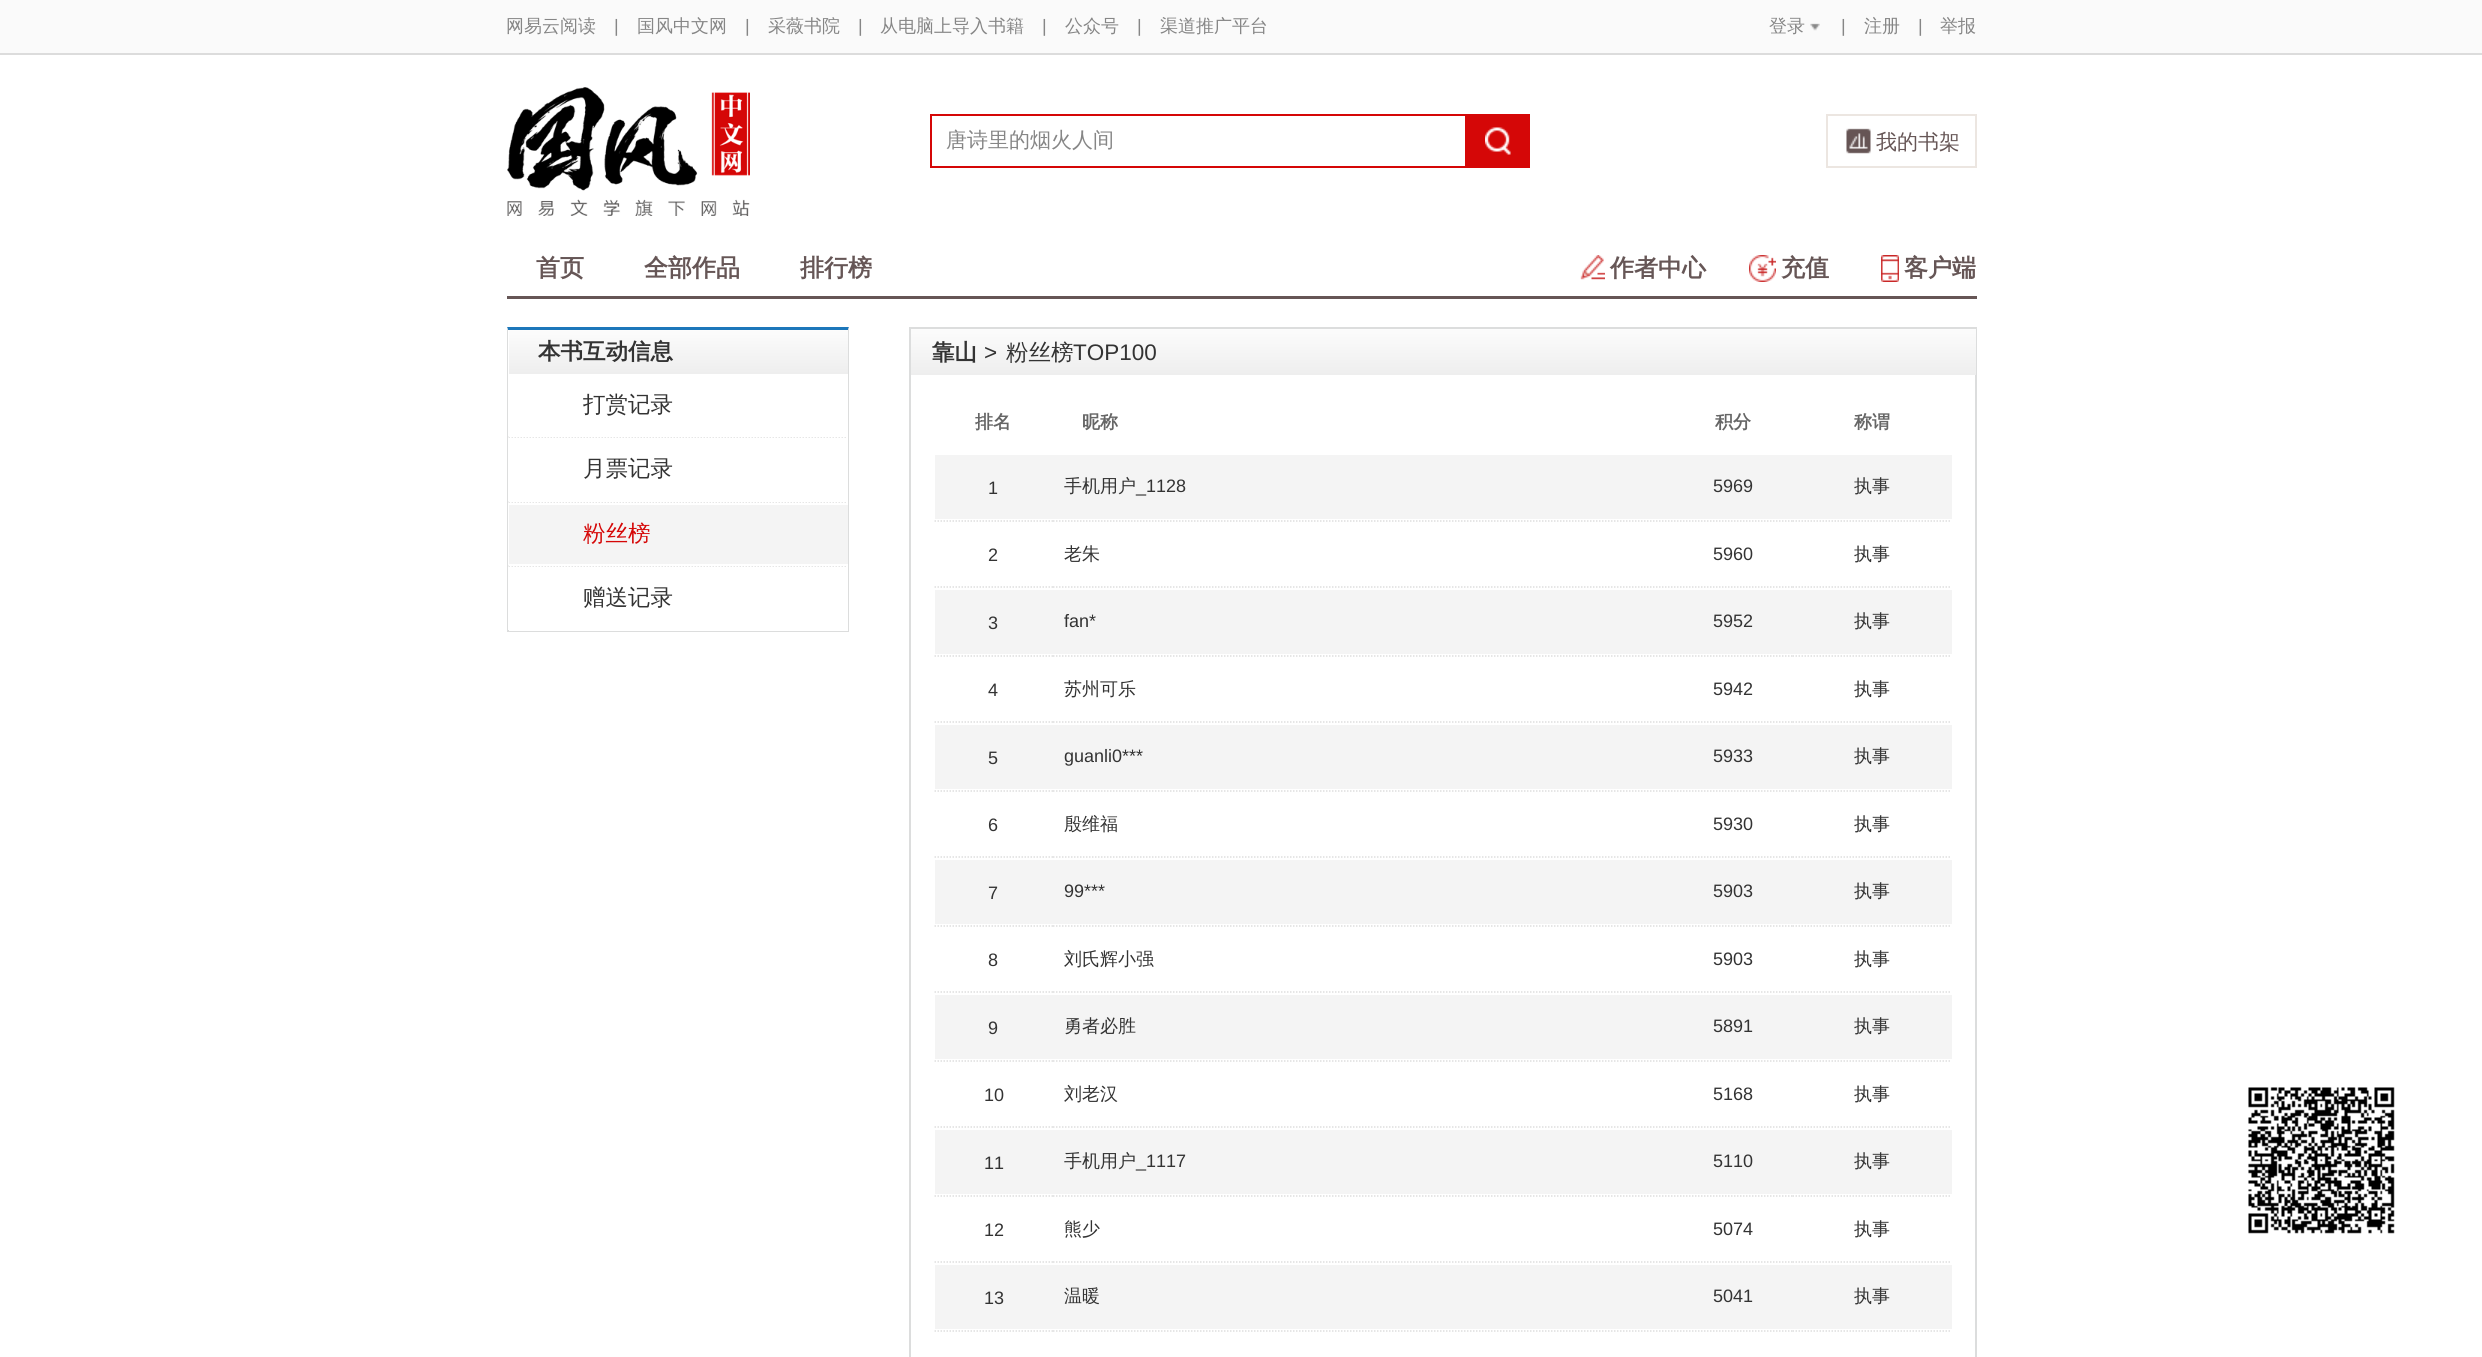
#include <cairo.h>
#include <math.h>
#include <stddef.h>


static void picture(cairo_t *cr, const char *path, double x, double y, double w, double h) {
    cairo_surface_t *image = cairo_image_surface_create_from_png(path);
    cairo_save(cr);
    cairo_set_source_surface(cr, image, x, y);
    cairo_rectangle(cr, x, y, w, h);
    cairo_fill(cr);
    cairo_restore(cr);
    cairo_surface_destroy(image);
}

int main(void) {
    cairo_surface_t *surface = cairo_image_surface_create(CAIRO_FORMAT_RGB24, 2482, 1357);
    cairo_t *cr = cairo_create(surface);
    cairo_font_options_t *options = cairo_font_options_create();
    cairo_font_options_set_hint_metrics(options, CAIRO_HINT_METRICS_OFF);
    cairo_font_options_set_hint_style(options, CAIRO_HINT_STYLE_NONE);
    cairo_set_font_options(cr, options);
    cairo_set_miter_limit(cr, 4);
    cairo_pattern_t *gradient;
    cairo_set_source_rgb(cr, 1, 1, 1);
    cairo_paint(cr);
    cairo_set_source_rgb(cr, 0.98, 0.98, 0.98);
    cairo_rectangle(cr, 0, 0, 2482, 53);
    cairo_fill(cr);
    cairo_set_source_rgb(cr, 0.863, 0.863, 0.863);
    cairo_rectangle(cr, 0, 53, 2482, 2);
    cairo_fill(cr);
    cairo_select_font_face(cr, "WenQuanYi Zen Hei Medium", CAIRO_FONT_SLANT_NORMAL, CAIRO_FONT_WEIGHT_NORMAL);
    cairo_set_font_size(cr, 18);
    cairo_set_source_rgb(cr, 0.525, 0.525, 0.525);
    cairo_move_to(cr, 506, 32);
    cairo_show_text(cr, "网易云阅读");
    cairo_select_font_face(cr, "Liberation Sans", CAIRO_FONT_SLANT_NORMAL, CAIRO_FONT_WEIGHT_NORMAL);
    cairo_move_to(cr, 614, 32);
    cairo_show_text(cr, "|");
    cairo_select_font_face(cr, "WenQuanYi Zen Hei Medium", CAIRO_FONT_SLANT_NORMAL, CAIRO_FONT_WEIGHT_NORMAL);
    cairo_move_to(cr, 637, 32);
    cairo_show_text(cr, "国风中文网");
    cairo_select_font_face(cr, "Liberation Sans", CAIRO_FONT_SLANT_NORMAL, CAIRO_FONT_WEIGHT_NORMAL);
    cairo_move_to(cr, 745, 32);
    cairo_show_text(cr, "|");
    cairo_select_font_face(cr, "WenQuanYi Zen Hei Medium", CAIRO_FONT_SLANT_NORMAL, CAIRO_FONT_WEIGHT_NORMAL);
    cairo_move_to(cr, 768, 32);
    cairo_show_text(cr, "采薇书院");
    cairo_select_font_face(cr, "Liberation Sans", CAIRO_FONT_SLANT_NORMAL, CAIRO_FONT_WEIGHT_NORMAL);
    cairo_move_to(cr, 858, 32);
    cairo_show_text(cr, "|");
    cairo_select_font_face(cr, "WenQuanYi Zen Hei Medium", CAIRO_FONT_SLANT_NORMAL, CAIRO_FONT_WEIGHT_NORMAL);
    cairo_move_to(cr, 880, 32);
    cairo_show_text(cr, "从电脑上导入书籍");
    cairo_select_font_face(cr, "Liberation Sans", CAIRO_FONT_SLANT_NORMAL, CAIRO_FONT_WEIGHT_NORMAL);
    cairo_move_to(cr, 1042, 32);
    cairo_show_text(cr, "|");
    cairo_select_font_face(cr, "WenQuanYi Zen Hei Medium", CAIRO_FONT_SLANT_NORMAL, CAIRO_FONT_WEIGHT_NORMAL);
    cairo_move_to(cr, 1065, 32);
    cairo_show_text(cr, "公众号");
    cairo_select_font_face(cr, "Liberation Sans", CAIRO_FONT_SLANT_NORMAL, CAIRO_FONT_WEIGHT_NORMAL);
    cairo_move_to(cr, 1137, 32);
    cairo_show_text(cr, "|");
    cairo_select_font_face(cr, "WenQuanYi Zen Hei Medium", CAIRO_FONT_SLANT_NORMAL, CAIRO_FONT_WEIGHT_NORMAL);
    cairo_move_to(cr, 1160, 32);
    cairo_show_text(cr, "渠道推广平台");
    cairo_move_to(cr, 1769, 32);
    cairo_show_text(cr, "登录");
    picture(cr, "img1.png", 1810, 23, 10, 8);
    cairo_select_font_face(cr, "Liberation Sans", CAIRO_FONT_SLANT_NORMAL, CAIRO_FONT_WEIGHT_NORMAL);
    cairo_move_to(cr, 1841, 32);
    cairo_show_text(cr, "|");
    cairo_select_font_face(cr, "WenQuanYi Zen Hei Medium", CAIRO_FONT_SLANT_NORMAL, CAIRO_FONT_WEIGHT_NORMAL);
    cairo_move_to(cr, 1864, 32);
    cairo_show_text(cr, "注册");
    cairo_select_font_face(cr, "Liberation Sans", CAIRO_FONT_SLANT_NORMAL, CAIRO_FONT_WEIGHT_NORMAL);
    cairo_move_to(cr, 1918, 32);
    cairo_show_text(cr, "|");
    cairo_select_font_face(cr, "WenQuanYi Zen Hei Medium", CAIRO_FONT_SLANT_NORMAL, CAIRO_FONT_WEIGHT_NORMAL);
    cairo_move_to(cr, 1940, 32);
    cairo_show_text(cr, "举报");
    picture(cr, "img2.png", 507, 87, 243, 129);
    cairo_rectangle(cr, 931, 115, 535, 52);
    cairo_set_source_rgb(cr, 0.835, 0.031, 0.031);
    cairo_stroke(cr);
    cairo_set_font_size(cr, 21);
    cairo_set_source_rgb(cr, 0.525, 0.525, 0.525);
    cairo_move_to(cr, 946, 147);
    cairo_show_text(cr, "唐诗里的烟火人间");
    cairo_set_source_rgb(cr, 0.835, 0.031, 0.031);
    cairo_rectangle(cr, 1467, 114, 63, 54);
    cairo_fill(cr);
    picture(cr, "img3.png", 1485, 127, 26, 28);
    picture(cr, "img4.png", 1846, 128, 25, 26);
    cairo_rectangle(cr, 1827, 115, 149, 52);
    cairo_set_source_rgb(cr, 0.922, 0.902, 0.882);
    cairo_stroke(cr);
    cairo_set_source_rgb(cr, 0.4, 0.337, 0.337);
    cairo_move_to(cr, 1876, 149);
    cairo_show_text(cr, "我的书架");
    cairo_rectangle(cr, 507, 296, 1470, 3);
    cairo_fill(cr);
    cairo_select_font_face(cr, "WenQuanYi Zen Hei", CAIRO_FONT_SLANT_NORMAL, CAIRO_FONT_WEIGHT_BOLD);
    cairo_set_font_size(cr, 24);
    cairo_move_to(cr, 536, 276);
    cairo_show_text(cr, "首页");
    cairo_move_to(cr, 644, 276);
    cairo_show_text(cr, "全部作品");
    cairo_move_to(cr, 800, 276);
    cairo_show_text(cr, "排行榜");
    picture(cr, "img5.png", 1580, 255, 25, 25);
    cairo_move_to(cr, 1610, 276);
    cairo_show_text(cr, "作者中心");
    picture(cr, "img6.png", 1749, 255, 27, 27);
    cairo_move_to(cr, 1781, 276);
    cairo_show_text(cr, "充值");
    picture(cr, "img7.png", 1881, 255, 18, 27);
    cairo_move_to(cr, 1904, 276);
    cairo_show_text(cr, "客户端");
    cairo_set_source_rgb(cr, 0.11, 0.467, 0.729);
    cairo_new_path(cr);
    cairo_move_to(cr, 507, 327);
    cairo_line_to(cr, 849, 327);
    cairo_line_to(cr, 848, 330);
    cairo_line_to(cr, 508, 330);
    cairo_close_path(cr);
    cairo_fill(cr);
    cairo_set_source_rgb(cr, 0.863, 0.867, 0.867);
    cairo_new_path(cr);
    cairo_move_to(cr, 849, 327);
    cairo_line_to(cr, 849, 632);
    cairo_line_to(cr, 848, 630);
    cairo_line_to(cr, 848, 330);
    cairo_close_path(cr);
    cairo_fill(cr);
    cairo_rectangle(cr, 507, 630, 342, 2);
    cairo_fill(cr);
    cairo_new_path(cr);
    cairo_move_to(cr, 507, 632);
    cairo_line_to(cr, 507, 327);
    cairo_line_to(cr, 508, 330);
    cairo_line_to(cr, 508, 630);
    cairo_close_path(cr);
    cairo_fill(cr);
    gradient = cairo_pattern_create_linear(509, 330, 509, 374);
    cairo_pattern_add_color_stop_rgba(gradient, 0, 0.988, 0.988, 0.988, 1);
    cairo_pattern_add_color_stop_rgba(gradient, 1, 0.933, 0.933, 0.933, 1);
    cairo_set_source(cr, gradient);
    cairo_pattern_destroy(gradient);
    cairo_rectangle(cr, 509, 330, 339, 44);
    cairo_fill(cr);
    cairo_set_font_size(cr, 22.5);
    cairo_set_source_rgb(cr, 0.2, 0.2, 0.2);
    cairo_move_to(cr, 538, 359);
    cairo_show_text(cr, "本书互动信息");
    cairo_new_path(cr);
    cairo_move_to(cr, 508.5, 437);
    cairo_line_to(cr, 847.5, 437);
    cairo_set_source_rgb(cr, 0.871, 0.871, 0.871);
    cairo_set_line_width(cr, 1.5);
    cairo_set_dash(cr, (double[]){1.5, 1.5}, 2, 0);
    cairo_stroke(cr);
    cairo_set_source_rgb(cr, 1, 1, 1);
    cairo_rectangle(cr, 509, 436, 339, 1);
    cairo_fill(cr);
    cairo_select_font_face(cr, "WenQuanYi Zen Hei Medium", CAIRO_FONT_SLANT_NORMAL, CAIRO_FONT_WEIGHT_NORMAL);
    cairo_set_source_rgb(cr, 0.2, 0.2, 0.2);
    cairo_move_to(cr, 583, 412);
    cairo_show_text(cr, "打赏记录");
    cairo_new_path(cr);
    cairo_move_to(cr, 508.5, 502);
    cairo_line_to(cr, 847.5, 502);
    cairo_set_source_rgb(cr, 0.871, 0.871, 0.871);
    cairo_stroke(cr);
    cairo_set_source_rgb(cr, 1, 1, 1);
    cairo_rectangle(cr, 509, 501, 339, 1);
    cairo_fill(cr);
    cairo_set_source_rgb(cr, 0.2, 0.2, 0.2);
    cairo_move_to(cr, 583, 476);
    cairo_show_text(cr, "月票记录");
    cairo_new_path(cr);
    cairo_move_to(cr, 508.5, 566);
    cairo_line_to(cr, 847.5, 566);
    cairo_set_source_rgb(cr, 0.871, 0.871, 0.871);
    cairo_stroke(cr);
    cairo_set_source_rgb(cr, 0.957, 0.957, 0.957);
    cairo_rectangle(cr, 509, 505, 339, 59);
    cairo_fill(cr);
    cairo_set_source_rgb(cr, 1, 1, 1);
    cairo_rectangle(cr, 509, 565, 339, 1);
    cairo_fill(cr);
    cairo_set_source_rgb(cr, 0.835, 0.031, 0.031);
    cairo_move_to(cr, 583, 541);
    cairo_show_text(cr, "粉丝榜");
    cairo_set_source_rgb(cr, 1, 1, 1);
    cairo_rectangle(cr, 509, 630, 339, 1);
    cairo_fill(cr);
    cairo_set_source_rgb(cr, 0.2, 0.2, 0.2);
    cairo_move_to(cr, 583, 605);
    cairo_show_text(cr, "赠送记录");
    cairo_rectangle(cr, 910, 328, 1066, 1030);
    cairo_set_source_rgb(cr, 0.863, 0.867, 0.867);
    cairo_set_line_width(cr, 2);
    cairo_set_dash(cr, NULL, 0, 0);
    cairo_stroke(cr);
    gradient = cairo_pattern_create_linear(911, 329, 911, 375);
    cairo_pattern_add_color_stop_rgba(gradient, 0, 0.988, 0.988, 0.988, 1);
    cairo_pattern_add_color_stop_rgba(gradient, 1, 0.933, 0.933, 0.933, 1);
    cairo_set_source(cr, gradient);
    cairo_pattern_destroy(gradient);
    cairo_rectangle(cr, 911, 329, 1065, 46);
    cairo_fill(cr);
    cairo_select_font_face(cr, "WenQuanYi Zen Hei", CAIRO_FONT_SLANT_NORMAL, CAIRO_FONT_WEIGHT_BOLD);
    cairo_set_source_rgb(cr, 0.2, 0.2, 0.2);
    cairo_move_to(cr, 932, 360);
    cairo_show_text(cr, "靠山");
    cairo_select_font_face(cr, "Liberation Sans", CAIRO_FONT_SLANT_NORMAL, CAIRO_FONT_WEIGHT_NORMAL);
    cairo_move_to(cr, 984, 360);
    cairo_show_text(cr, ">");
    cairo_select_font_face(cr, "WenQuanYi Zen Hei Medium", CAIRO_FONT_SLANT_NORMAL, CAIRO_FONT_WEIGHT_NORMAL);
    cairo_move_to(cr, 1006, 360);
    cairo_show_text(cr, "粉丝榜");
    cairo_select_font_face(cr, "Liberation Sans", CAIRO_FONT_SLANT_NORMAL, CAIRO_FONT_WEIGHT_NORMAL);
    cairo_move_to(cr, 1073, 360);
    cairo_show_text(cr, "TOP100");
    cairo_select_font_face(cr, "WenQuanYi Zen Hei", CAIRO_FONT_SLANT_NORMAL, CAIRO_FONT_WEIGHT_BOLD);
    cairo_set_font_size(cr, 18);
    cairo_set_source_rgb(cr, 0.4, 0.4, 0.4);
    cairo_move_to(cr, 975, 428);
    cairo_show_text(cr, "排名");
    cairo_move_to(cr, 1082, 428);
    cairo_show_text(cr, "昵称");
    cairo_move_to(cr, 1715, 428);
    cairo_show_text(cr, "积分");
    cairo_move_to(cr, 1854, 428);
    cairo_show_text(cr, "称谓");
    cairo_set_source_rgb(cr, 0.957, 0.957, 0.957);
    cairo_rectangle(cr, 935, 455, 1017, 64);
    cairo_fill(cr);
    cairo_select_font_face(cr, "Liberation Sans", CAIRO_FONT_SLANT_NORMAL, CAIRO_FONT_WEIGHT_NORMAL);
    cairo_set_source_rgb(cr, 0.2, 0.2, 0.2);
    cairo_move_to(cr, 988, 494);
    cairo_show_text(cr, "1");
    cairo_select_font_face(cr, "WenQuanYi Zen Hei Medium", CAIRO_FONT_SLANT_NORMAL, CAIRO_FONT_WEIGHT_NORMAL);
    cairo_move_to(cr, 1064, 492);
    cairo_show_text(cr, "手机用户");
    cairo_select_font_face(cr, "Liberation Sans", CAIRO_FONT_SLANT_NORMAL, CAIRO_FONT_WEIGHT_NORMAL);
    cairo_move_to(cr, 1136, 492);
    cairo_show_text(cr, "_1128");
    cairo_move_to(cr, 1713, 492);
    cairo_show_text(cr, "5969");
    cairo_select_font_face(cr, "WenQuanYi Zen Hei Medium", CAIRO_FONT_SLANT_NORMAL, CAIRO_FONT_WEIGHT_NORMAL);
    cairo_move_to(cr, 1854, 492);
    cairo_show_text(cr, "执事");
    cairo_new_path(cr);
    cairo_move_to(cr, 934.5, 521);
    cairo_line_to(cr, 1053, 521);
    cairo_set_source_rgb(cr, 0.871, 0.871, 0.871);
    cairo_set_line_width(cr, 1.5);
    cairo_set_dash(cr, (double[]){1.5, 1.5}, 2, 0);
    cairo_stroke(cr);
    cairo_new_path(cr);
    cairo_move_to(cr, 934.5, 587);
    cairo_line_to(cr, 1053, 587);
    cairo_stroke(cr);
    cairo_select_font_face(cr, "Liberation Sans", CAIRO_FONT_SLANT_NORMAL, CAIRO_FONT_WEIGHT_NORMAL);
    cairo_set_source_rgb(cr, 0.2, 0.2, 0.2);
    cairo_move_to(cr, 988, 561);
    cairo_show_text(cr, "2");
    cairo_new_path(cr);
    cairo_move_to(cr, 1053, 521);
    cairo_line_to(cr, 1674, 521);
    cairo_set_source_rgb(cr, 0.871, 0.871, 0.871);
    cairo_stroke(cr);
    cairo_new_path(cr);
    cairo_move_to(cr, 1053, 587);
    cairo_line_to(cr, 1674, 587);
    cairo_stroke(cr);
    cairo_select_font_face(cr, "WenQuanYi Zen Hei Medium", CAIRO_FONT_SLANT_NORMAL, CAIRO_FONT_WEIGHT_NORMAL);
    cairo_set_source_rgb(cr, 0.2, 0.2, 0.2);
    cairo_move_to(cr, 1064, 560);
    cairo_show_text(cr, "老朱");
    cairo_new_path(cr);
    cairo_move_to(cr, 1674, 521);
    cairo_line_to(cr, 1792.5, 521);
    cairo_set_source_rgb(cr, 0.871, 0.871, 0.871);
    cairo_stroke(cr);
    cairo_new_path(cr);
    cairo_move_to(cr, 1674, 587);
    cairo_line_to(cr, 1792.5, 587);
    cairo_stroke(cr);
    cairo_select_font_face(cr, "Liberation Sans", CAIRO_FONT_SLANT_NORMAL, CAIRO_FONT_WEIGHT_NORMAL);
    cairo_set_source_rgb(cr, 0.2, 0.2, 0.2);
    cairo_move_to(cr, 1713, 560);
    cairo_show_text(cr, "5960");
    cairo_new_path(cr);
    cairo_move_to(cr, 1792.5, 521);
    cairo_line_to(cr, 1951.5, 521);
    cairo_set_source_rgb(cr, 0.871, 0.871, 0.871);
    cairo_stroke(cr);
    cairo_new_path(cr);
    cairo_move_to(cr, 1792.5, 587);
    cairo_line_to(cr, 1951.5, 587);
    cairo_stroke(cr);
    cairo_select_font_face(cr, "WenQuanYi Zen Hei Medium", CAIRO_FONT_SLANT_NORMAL, CAIRO_FONT_WEIGHT_NORMAL);
    cairo_set_source_rgb(cr, 0.2, 0.2, 0.2);
    cairo_move_to(cr, 1854, 560);
    cairo_show_text(cr, "执事");
    cairo_set_source_rgb(cr, 0.957, 0.957, 0.957);
    cairo_rectangle(cr, 935, 590, 1017, 64);
    cairo_fill(cr);
    cairo_select_font_face(cr, "Liberation Sans", CAIRO_FONT_SLANT_NORMAL, CAIRO_FONT_WEIGHT_NORMAL);
    cairo_set_source_rgb(cr, 0.2, 0.2, 0.2);
    cairo_move_to(cr, 988, 629);
    cairo_show_text(cr, "3");
    cairo_move_to(cr, 1064, 627);
    cairo_show_text(cr, "fan*");
    cairo_move_to(cr, 1713, 627);
    cairo_show_text(cr, "5952");
    cairo_select_font_face(cr, "WenQuanYi Zen Hei Medium", CAIRO_FONT_SLANT_NORMAL, CAIRO_FONT_WEIGHT_NORMAL);
    cairo_move_to(cr, 1854, 627);
    cairo_show_text(cr, "执事");
    cairo_new_path(cr);
    cairo_move_to(cr, 934.5, 656);
    cairo_line_to(cr, 1053, 656);
    cairo_set_source_rgb(cr, 0.871, 0.871, 0.871);
    cairo_stroke(cr);
    cairo_new_path(cr);
    cairo_move_to(cr, 934.5, 722);
    cairo_line_to(cr, 1053, 722);
    cairo_stroke(cr);
    cairo_select_font_face(cr, "Liberation Sans", CAIRO_FONT_SLANT_NORMAL, CAIRO_FONT_WEIGHT_NORMAL);
    cairo_set_source_rgb(cr, 0.2, 0.2, 0.2);
    cairo_move_to(cr, 988, 696);
    cairo_show_text(cr, "4");
    cairo_new_path(cr);
    cairo_move_to(cr, 1053, 656);
    cairo_line_to(cr, 1674, 656);
    cairo_set_source_rgb(cr, 0.871, 0.871, 0.871);
    cairo_stroke(cr);
    cairo_new_path(cr);
    cairo_move_to(cr, 1053, 722);
    cairo_line_to(cr, 1674, 722);
    cairo_stroke(cr);
    cairo_select_font_face(cr, "WenQuanYi Zen Hei Medium", CAIRO_FONT_SLANT_NORMAL, CAIRO_FONT_WEIGHT_NORMAL);
    cairo_set_source_rgb(cr, 0.2, 0.2, 0.2);
    cairo_move_to(cr, 1064, 695);
    cairo_show_text(cr, "苏州可乐");
    cairo_new_path(cr);
    cairo_move_to(cr, 1674, 656);
    cairo_line_to(cr, 1792.5, 656);
    cairo_set_source_rgb(cr, 0.871, 0.871, 0.871);
    cairo_stroke(cr);
    cairo_new_path(cr);
    cairo_move_to(cr, 1674, 722);
    cairo_line_to(cr, 1792.5, 722);
    cairo_stroke(cr);
    cairo_select_font_face(cr, "Liberation Sans", CAIRO_FONT_SLANT_NORMAL, CAIRO_FONT_WEIGHT_NORMAL);
    cairo_set_source_rgb(cr, 0.2, 0.2, 0.2);
    cairo_move_to(cr, 1713, 695);
    cairo_show_text(cr, "5942");
    cairo_new_path(cr);
    cairo_move_to(cr, 1792.5, 656);
    cairo_line_to(cr, 1951.5, 656);
    cairo_set_source_rgb(cr, 0.871, 0.871, 0.871);
    cairo_stroke(cr);
    cairo_new_path(cr);
    cairo_move_to(cr, 1792.5, 722);
    cairo_line_to(cr, 1951.5, 722);
    cairo_stroke(cr);
    cairo_select_font_face(cr, "WenQuanYi Zen Hei Medium", CAIRO_FONT_SLANT_NORMAL, CAIRO_FONT_WEIGHT_NORMAL);
    cairo_set_source_rgb(cr, 0.2, 0.2, 0.2);
    cairo_move_to(cr, 1854, 695);
    cairo_show_text(cr, "执事");
    cairo_set_source_rgb(cr, 0.957, 0.957, 0.957);
    cairo_rectangle(cr, 935, 725, 1017, 64);
    cairo_fill(cr);
    cairo_select_font_face(cr, "Liberation Sans", CAIRO_FONT_SLANT_NORMAL, CAIRO_FONT_WEIGHT_NORMAL);
    cairo_set_source_rgb(cr, 0.2, 0.2, 0.2);
    cairo_move_to(cr, 988, 764);
    cairo_show_text(cr, "5");
    cairo_move_to(cr, 1064, 762);
    cairo_show_text(cr, "guanli0***");
    cairo_move_to(cr, 1713, 762);
    cairo_show_text(cr, "5933");
    cairo_select_font_face(cr, "WenQuanYi Zen Hei Medium", CAIRO_FONT_SLANT_NORMAL, CAIRO_FONT_WEIGHT_NORMAL);
    cairo_move_to(cr, 1854, 762);
    cairo_show_text(cr, "执事");
    cairo_new_path(cr);
    cairo_move_to(cr, 934.5, 791);
    cairo_line_to(cr, 1053, 791);
    cairo_set_source_rgb(cr, 0.871, 0.871, 0.871);
    cairo_stroke(cr);
    cairo_new_path(cr);
    cairo_move_to(cr, 934.5, 857);
    cairo_line_to(cr, 1053, 857);
    cairo_stroke(cr);
    cairo_select_font_face(cr, "Liberation Sans", CAIRO_FONT_SLANT_NORMAL, CAIRO_FONT_WEIGHT_NORMAL);
    cairo_set_source_rgb(cr, 0.2, 0.2, 0.2);
    cairo_move_to(cr, 988, 831);
    cairo_show_text(cr, "6");
    cairo_new_path(cr);
    cairo_move_to(cr, 1053, 791);
    cairo_line_to(cr, 1674, 791);
    cairo_set_source_rgb(cr, 0.871, 0.871, 0.871);
    cairo_stroke(cr);
    cairo_new_path(cr);
    cairo_move_to(cr, 1053, 857);
    cairo_line_to(cr, 1674, 857);
    cairo_stroke(cr);
    cairo_select_font_face(cr, "WenQuanYi Zen Hei Medium", CAIRO_FONT_SLANT_NORMAL, CAIRO_FONT_WEIGHT_NORMAL);
    cairo_set_source_rgb(cr, 0.2, 0.2, 0.2);
    cairo_move_to(cr, 1064, 830);
    cairo_show_text(cr, "殷维福");
    cairo_new_path(cr);
    cairo_move_to(cr, 1674, 791);
    cairo_line_to(cr, 1792.5, 791);
    cairo_set_source_rgb(cr, 0.871, 0.871, 0.871);
    cairo_stroke(cr);
    cairo_new_path(cr);
    cairo_move_to(cr, 1674, 857);
    cairo_line_to(cr, 1792.5, 857);
    cairo_stroke(cr);
    cairo_select_font_face(cr, "Liberation Sans", CAIRO_FONT_SLANT_NORMAL, CAIRO_FONT_WEIGHT_NORMAL);
    cairo_set_source_rgb(cr, 0.2, 0.2, 0.2);
    cairo_move_to(cr, 1713, 830);
    cairo_show_text(cr, "5930");
    cairo_new_path(cr);
    cairo_move_to(cr, 1792.5, 791);
    cairo_line_to(cr, 1951.5, 791);
    cairo_set_source_rgb(cr, 0.871, 0.871, 0.871);
    cairo_stroke(cr);
    cairo_new_path(cr);
    cairo_move_to(cr, 1792.5, 857);
    cairo_line_to(cr, 1951.5, 857);
    cairo_stroke(cr);
    cairo_select_font_face(cr, "WenQuanYi Zen Hei Medium", CAIRO_FONT_SLANT_NORMAL, CAIRO_FONT_WEIGHT_NORMAL);
    cairo_set_source_rgb(cr, 0.2, 0.2, 0.2);
    cairo_move_to(cr, 1854, 830);
    cairo_show_text(cr, "执事");
    cairo_set_source_rgb(cr, 0.957, 0.957, 0.957);
    cairo_rectangle(cr, 935, 860, 1017, 64);
    cairo_fill(cr);
    cairo_select_font_face(cr, "Liberation Sans", CAIRO_FONT_SLANT_NORMAL, CAIRO_FONT_WEIGHT_NORMAL);
    cairo_set_source_rgb(cr, 0.2, 0.2, 0.2);
    cairo_move_to(cr, 988, 899);
    cairo_show_text(cr, "7");
    cairo_move_to(cr, 1064, 897);
    cairo_show_text(cr, "99***");
    cairo_move_to(cr, 1713, 897);
    cairo_show_text(cr, "5903");
    cairo_select_font_face(cr, "WenQuanYi Zen Hei Medium", CAIRO_FONT_SLANT_NORMAL, CAIRO_FONT_WEIGHT_NORMAL);
    cairo_move_to(cr, 1854, 897);
    cairo_show_text(cr, "执事");
    cairo_new_path(cr);
    cairo_move_to(cr, 934.5, 926);
    cairo_line_to(cr, 1053, 926);
    cairo_set_source_rgb(cr, 0.871, 0.871, 0.871);
    cairo_stroke(cr);
    cairo_new_path(cr);
    cairo_move_to(cr, 934.5, 992);
    cairo_line_to(cr, 1053, 992);
    cairo_stroke(cr);
    cairo_select_font_face(cr, "Liberation Sans", CAIRO_FONT_SLANT_NORMAL, CAIRO_FONT_WEIGHT_NORMAL);
    cairo_set_source_rgb(cr, 0.2, 0.2, 0.2);
    cairo_move_to(cr, 988, 966);
    cairo_show_text(cr, "8");
    cairo_new_path(cr);
    cairo_move_to(cr, 1053, 926);
    cairo_line_to(cr, 1674, 926);
    cairo_set_source_rgb(cr, 0.871, 0.871, 0.871);
    cairo_stroke(cr);
    cairo_new_path(cr);
    cairo_move_to(cr, 1053, 992);
    cairo_line_to(cr, 1674, 992);
    cairo_stroke(cr);
    cairo_select_font_face(cr, "WenQuanYi Zen Hei Medium", CAIRO_FONT_SLANT_NORMAL, CAIRO_FONT_WEIGHT_NORMAL);
    cairo_set_source_rgb(cr, 0.2, 0.2, 0.2);
    cairo_move_to(cr, 1064, 965);
    cairo_show_text(cr, "刘氏辉小强");
    cairo_new_path(cr);
    cairo_move_to(cr, 1674, 926);
    cairo_line_to(cr, 1792.5, 926);
    cairo_set_source_rgb(cr, 0.871, 0.871, 0.871);
    cairo_stroke(cr);
    cairo_new_path(cr);
    cairo_move_to(cr, 1674, 992);
    cairo_line_to(cr, 1792.5, 992);
    cairo_stroke(cr);
    cairo_select_font_face(cr, "Liberation Sans", CAIRO_FONT_SLANT_NORMAL, CAIRO_FONT_WEIGHT_NORMAL);
    cairo_set_source_rgb(cr, 0.2, 0.2, 0.2);
    cairo_move_to(cr, 1713, 965);
    cairo_show_text(cr, "5903");
    cairo_new_path(cr);
    cairo_move_to(cr, 1792.5, 926);
    cairo_line_to(cr, 1951.5, 926);
    cairo_set_source_rgb(cr, 0.871, 0.871, 0.871);
    cairo_stroke(cr);
    cairo_new_path(cr);
    cairo_move_to(cr, 1792.5, 992);
    cairo_line_to(cr, 1951.5, 992);
    cairo_stroke(cr);
    cairo_select_font_face(cr, "WenQuanYi Zen Hei Medium", CAIRO_FONT_SLANT_NORMAL, CAIRO_FONT_WEIGHT_NORMAL);
    cairo_set_source_rgb(cr, 0.2, 0.2, 0.2);
    cairo_move_to(cr, 1854, 965);
    cairo_show_text(cr, "执事");
    cairo_set_source_rgb(cr, 0.957, 0.957, 0.957);
    cairo_rectangle(cr, 935, 995, 1017, 64);
    cairo_fill(cr);
    cairo_select_font_face(cr, "Liberation Sans", CAIRO_FONT_SLANT_NORMAL, CAIRO_FONT_WEIGHT_NORMAL);
    cairo_set_source_rgb(cr, 0.2, 0.2, 0.2);
    cairo_move_to(cr, 988, 1034);
    cairo_show_text(cr, "9");
    cairo_select_font_face(cr, "WenQuanYi Zen Hei Medium", CAIRO_FONT_SLANT_NORMAL, CAIRO_FONT_WEIGHT_NORMAL);
    cairo_move_to(cr, 1064, 1032);
    cairo_show_text(cr, "勇者必胜");
    cairo_select_font_face(cr, "Liberation Sans", CAIRO_FONT_SLANT_NORMAL, CAIRO_FONT_WEIGHT_NORMAL);
    cairo_move_to(cr, 1713, 1032);
    cairo_show_text(cr, "5891");
    cairo_select_font_face(cr, "WenQuanYi Zen Hei Medium", CAIRO_FONT_SLANT_NORMAL, CAIRO_FONT_WEIGHT_NORMAL);
    cairo_move_to(cr, 1854, 1032);
    cairo_show_text(cr, "执事");
    cairo_new_path(cr);
    cairo_move_to(cr, 934.5, 1061);
    cairo_line_to(cr, 1053, 1061);
    cairo_set_source_rgb(cr, 0.871, 0.871, 0.871);
    cairo_stroke(cr);
    cairo_new_path(cr);
    cairo_move_to(cr, 934.5, 1127);
    cairo_line_to(cr, 1053, 1127);
    cairo_stroke(cr);
    cairo_select_font_face(cr, "Liberation Sans", CAIRO_FONT_SLANT_NORMAL, CAIRO_FONT_WEIGHT_NORMAL);
    cairo_set_source_rgb(cr, 0.2, 0.2, 0.2);
    cairo_move_to(cr, 984, 1101);
    cairo_show_text(cr, "10");
    cairo_new_path(cr);
    cairo_move_to(cr, 1053, 1061);
    cairo_line_to(cr, 1674, 1061);
    cairo_set_source_rgb(cr, 0.871, 0.871, 0.871);
    cairo_stroke(cr);
    cairo_new_path(cr);
    cairo_move_to(cr, 1053, 1127);
    cairo_line_to(cr, 1674, 1127);
    cairo_stroke(cr);
    cairo_select_font_face(cr, "WenQuanYi Zen Hei Medium", CAIRO_FONT_SLANT_NORMAL, CAIRO_FONT_WEIGHT_NORMAL);
    cairo_set_source_rgb(cr, 0.2, 0.2, 0.2);
    cairo_move_to(cr, 1064, 1100);
    cairo_show_text(cr, "刘老汉");
    cairo_new_path(cr);
    cairo_move_to(cr, 1674, 1061);
    cairo_line_to(cr, 1792.5, 1061);
    cairo_set_source_rgb(cr, 0.871, 0.871, 0.871);
    cairo_stroke(cr);
    cairo_new_path(cr);
    cairo_move_to(cr, 1674, 1127);
    cairo_line_to(cr, 1792.5, 1127);
    cairo_stroke(cr);
    cairo_select_font_face(cr, "Liberation Sans", CAIRO_FONT_SLANT_NORMAL, CAIRO_FONT_WEIGHT_NORMAL);
    cairo_set_source_rgb(cr, 0.2, 0.2, 0.2);
    cairo_move_to(cr, 1713, 1100);
    cairo_show_text(cr, "5168");
    cairo_new_path(cr);
    cairo_move_to(cr, 1792.5, 1061);
    cairo_line_to(cr, 1951.5, 1061);
    cairo_set_source_rgb(cr, 0.871, 0.871, 0.871);
    cairo_stroke(cr);
    cairo_new_path(cr);
    cairo_move_to(cr, 1792.5, 1127);
    cairo_line_to(cr, 1951.5, 1127);
    cairo_stroke(cr);
    cairo_select_font_face(cr, "WenQuanYi Zen Hei Medium", CAIRO_FONT_SLANT_NORMAL, CAIRO_FONT_WEIGHT_NORMAL);
    cairo_set_source_rgb(cr, 0.2, 0.2, 0.2);
    cairo_move_to(cr, 1854, 1100);
    cairo_show_text(cr, "执事");
    cairo_set_source_rgb(cr, 0.957, 0.957, 0.957);
    cairo_rectangle(cr, 935, 1130, 1017, 64);
    cairo_fill(cr);
    cairo_select_font_face(cr, "Liberation Sans", CAIRO_FONT_SLANT_NORMAL, CAIRO_FONT_WEIGHT_NORMAL);
    cairo_set_source_rgb(cr, 0.2, 0.2, 0.2);
    cairo_move_to(cr, 984, 1169);
    cairo_show_text(cr, "11");
    cairo_select_font_face(cr, "WenQuanYi Zen Hei Medium", CAIRO_FONT_SLANT_NORMAL, CAIRO_FONT_WEIGHT_NORMAL);
    cairo_move_to(cr, 1064, 1167);
    cairo_show_text(cr, "手机用户");
    cairo_select_font_face(cr, "Liberation Sans", CAIRO_FONT_SLANT_NORMAL, CAIRO_FONT_WEIGHT_NORMAL);
    cairo_move_to(cr, 1136, 1167);
    cairo_show_text(cr, "_1117");
    cairo_move_to(cr, 1713, 1167);
    cairo_show_text(cr, "5110");
    cairo_select_font_face(cr, "WenQuanYi Zen Hei Medium", CAIRO_FONT_SLANT_NORMAL, CAIRO_FONT_WEIGHT_NORMAL);
    cairo_move_to(cr, 1854, 1167);
    cairo_show_text(cr, "执事");
    cairo_new_path(cr);
    cairo_move_to(cr, 934.5, 1196);
    cairo_line_to(cr, 1053, 1196);
    cairo_set_source_rgb(cr, 0.871, 0.871, 0.871);
    cairo_stroke(cr);
    cairo_new_path(cr);
    cairo_move_to(cr, 934.5, 1262);
    cairo_line_to(cr, 1053, 1262);
    cairo_stroke(cr);
    cairo_select_font_face(cr, "Liberation Sans", CAIRO_FONT_SLANT_NORMAL, CAIRO_FONT_WEIGHT_NORMAL);
    cairo_set_source_rgb(cr, 0.2, 0.2, 0.2);
    cairo_move_to(cr, 984, 1236);
    cairo_show_text(cr, "12");
    cairo_new_path(cr);
    cairo_move_to(cr, 1053, 1196);
    cairo_line_to(cr, 1674, 1196);
    cairo_set_source_rgb(cr, 0.871, 0.871, 0.871);
    cairo_stroke(cr);
    cairo_new_path(cr);
    cairo_move_to(cr, 1053, 1262);
    cairo_line_to(cr, 1674, 1262);
    cairo_stroke(cr);
    cairo_select_font_face(cr, "WenQuanYi Zen Hei Medium", CAIRO_FONT_SLANT_NORMAL, CAIRO_FONT_WEIGHT_NORMAL);
    cairo_set_source_rgb(cr, 0.2, 0.2, 0.2);
    cairo_move_to(cr, 1064, 1235);
    cairo_show_text(cr, "熊少");
    cairo_new_path(cr);
    cairo_move_to(cr, 1674, 1196);
    cairo_line_to(cr, 1792.5, 1196);
    cairo_set_source_rgb(cr, 0.871, 0.871, 0.871);
    cairo_stroke(cr);
    cairo_new_path(cr);
    cairo_move_to(cr, 1674, 1262);
    cairo_line_to(cr, 1792.5, 1262);
    cairo_stroke(cr);
    cairo_select_font_face(cr, "Liberation Sans", CAIRO_FONT_SLANT_NORMAL, CAIRO_FONT_WEIGHT_NORMAL);
    cairo_set_source_rgb(cr, 0.2, 0.2, 0.2);
    cairo_move_to(cr, 1713, 1235);
    cairo_show_text(cr, "5074");
    cairo_new_path(cr);
    cairo_move_to(cr, 1792.5, 1196);
    cairo_line_to(cr, 1951.5, 1196);
    cairo_set_source_rgb(cr, 0.871, 0.871, 0.871);
    cairo_stroke(cr);
    cairo_new_path(cr);
    cairo_move_to(cr, 1792.5, 1262);
    cairo_line_to(cr, 1951.5, 1262);
    cairo_stroke(cr);
    cairo_select_font_face(cr, "WenQuanYi Zen Hei Medium", CAIRO_FONT_SLANT_NORMAL, CAIRO_FONT_WEIGHT_NORMAL);
    cairo_set_source_rgb(cr, 0.2, 0.2, 0.2);
    cairo_move_to(cr, 1854, 1235);
    cairo_show_text(cr, "执事");
    cairo_set_source_rgb(cr, 0.957, 0.957, 0.957);
    cairo_rectangle(cr, 935, 1265, 1017, 64);
    cairo_fill(cr);
    cairo_select_font_face(cr, "Liberation Sans", CAIRO_FONT_SLANT_NORMAL, CAIRO_FONT_WEIGHT_NORMAL);
    cairo_set_source_rgb(cr, 0.2, 0.2, 0.2);
    cairo_move_to(cr, 984, 1304);
    cairo_show_text(cr, "13");
    cairo_select_font_face(cr, "WenQuanYi Zen Hei Medium", CAIRO_FONT_SLANT_NORMAL, CAIRO_FONT_WEIGHT_NORMAL);
    cairo_move_to(cr, 1064, 1302);
    cairo_show_text(cr, "温暖");
    cairo_select_font_face(cr, "Liberation Sans", CAIRO_FONT_SLANT_NORMAL, CAIRO_FONT_WEIGHT_NORMAL);
    cairo_move_to(cr, 1713, 1302);
    cairo_show_text(cr, "5041");
    cairo_select_font_face(cr, "WenQuanYi Zen Hei Medium", CAIRO_FONT_SLANT_NORMAL, CAIRO_FONT_WEIGHT_NORMAL);
    cairo_move_to(cr, 1854, 1302);
    cairo_show_text(cr, "执事");
    cairo_new_path(cr);
    cairo_move_to(cr, 934.5, 1331);
    cairo_line_to(cr, 1053, 1331);
    cairo_set_source_rgb(cr, 0.871, 0.871, 0.871);
    cairo_stroke(cr);
    cairo_new_path(cr);
    cairo_move_to(cr, 1053, 1331);
    cairo_line_to(cr, 1674, 1331);
    cairo_stroke(cr);
    cairo_new_path(cr);
    cairo_move_to(cr, 1674, 1331);
    cairo_line_to(cr, 1792.5, 1331);
    cairo_stroke(cr);
    cairo_new_path(cr);
    cairo_move_to(cr, 1792.5, 1331);
    cairo_line_to(cr, 1951.5, 1331);
    cairo_stroke(cr);
    picture(cr, "img8.png", 2248, 1087, 147, 147);
    cairo_surface_write_to_png(surface, "page.png");
    cairo_font_options_destroy(options);
    cairo_destroy(cr);
    cairo_surface_destroy(surface);
    return 0;
}
